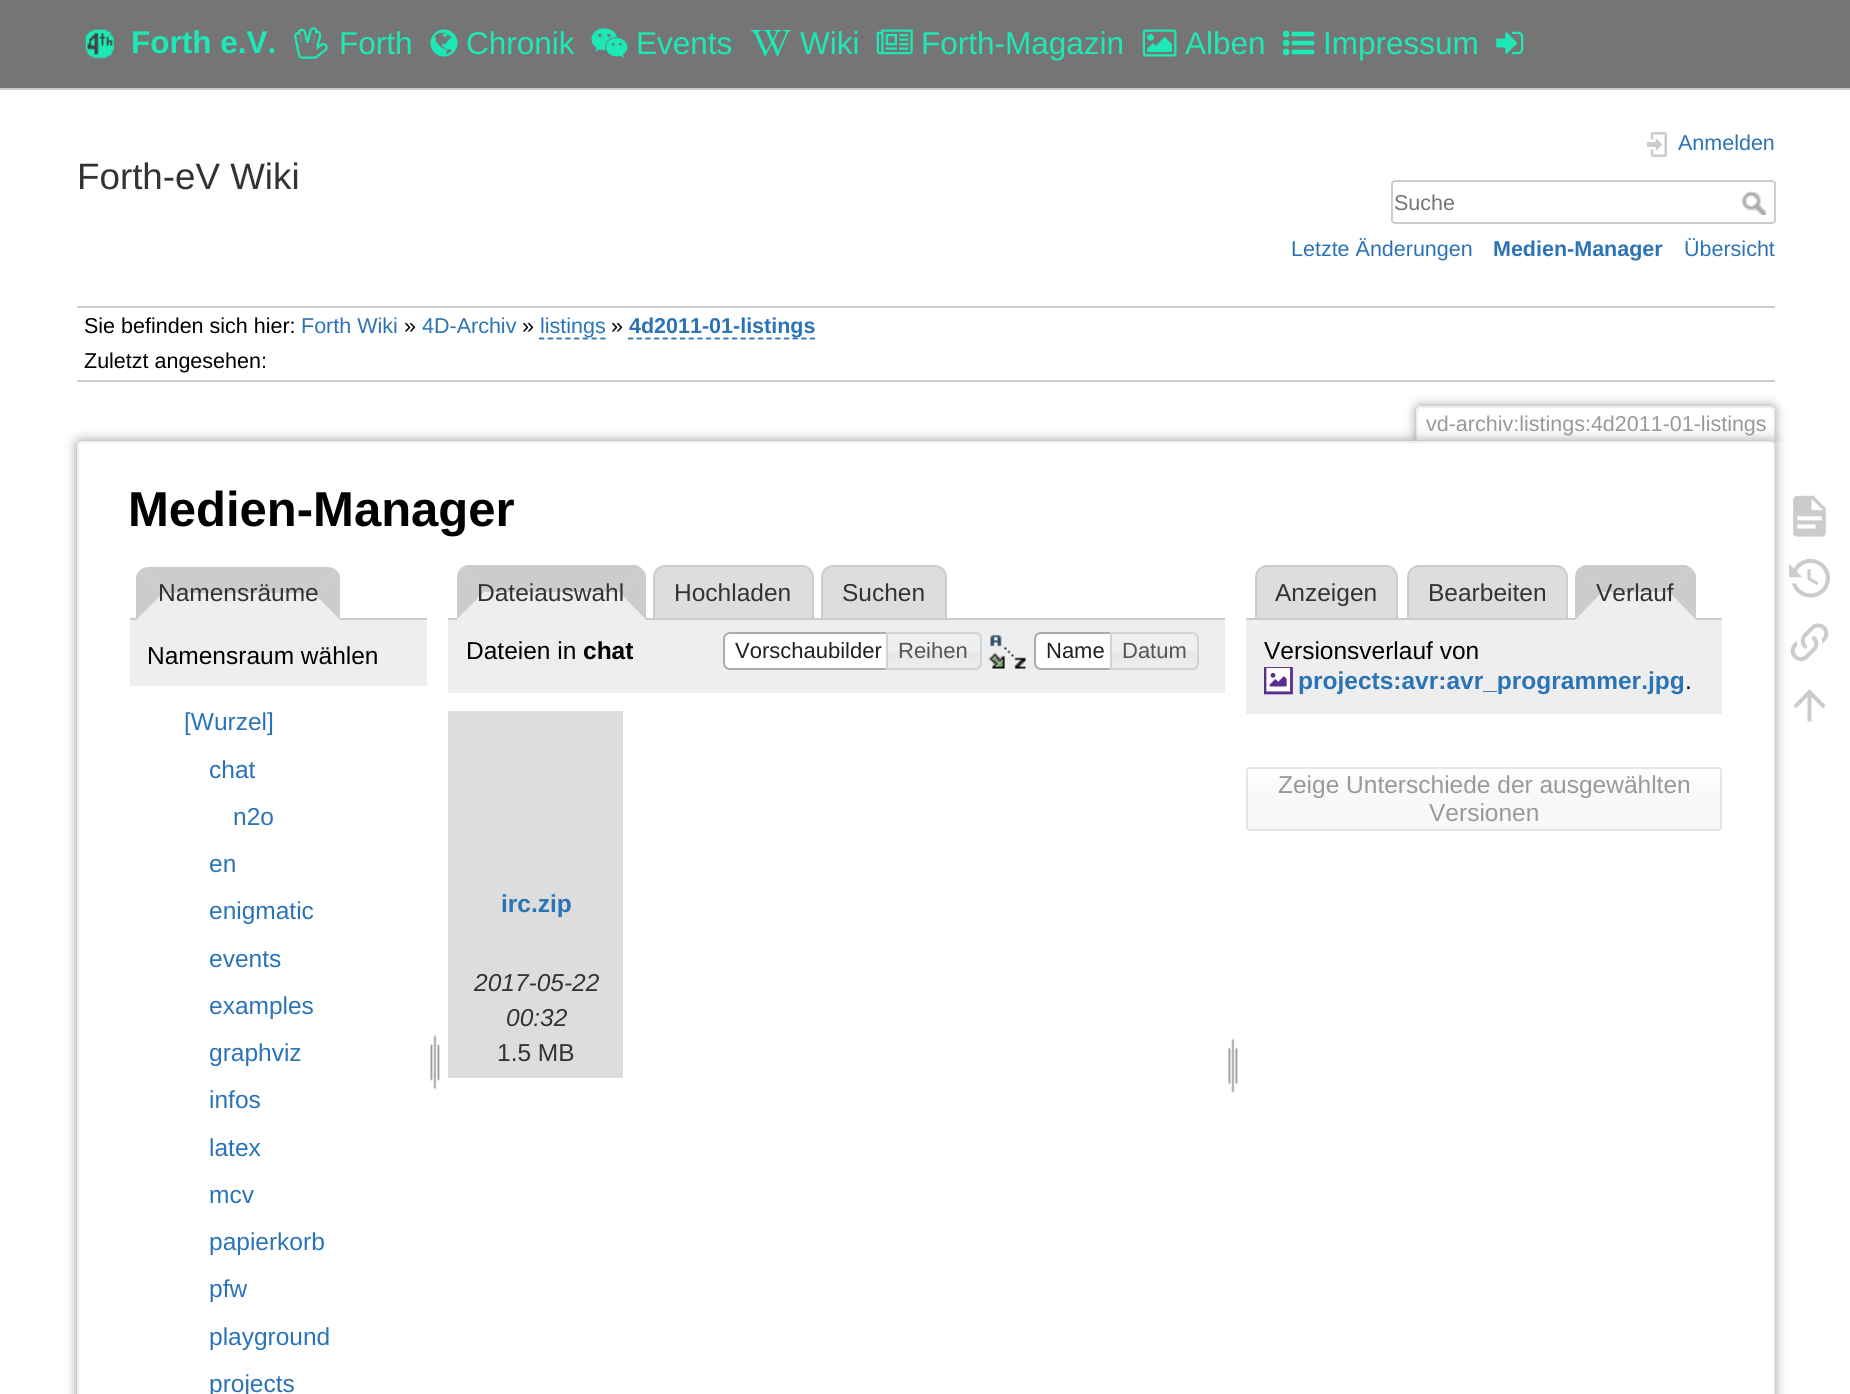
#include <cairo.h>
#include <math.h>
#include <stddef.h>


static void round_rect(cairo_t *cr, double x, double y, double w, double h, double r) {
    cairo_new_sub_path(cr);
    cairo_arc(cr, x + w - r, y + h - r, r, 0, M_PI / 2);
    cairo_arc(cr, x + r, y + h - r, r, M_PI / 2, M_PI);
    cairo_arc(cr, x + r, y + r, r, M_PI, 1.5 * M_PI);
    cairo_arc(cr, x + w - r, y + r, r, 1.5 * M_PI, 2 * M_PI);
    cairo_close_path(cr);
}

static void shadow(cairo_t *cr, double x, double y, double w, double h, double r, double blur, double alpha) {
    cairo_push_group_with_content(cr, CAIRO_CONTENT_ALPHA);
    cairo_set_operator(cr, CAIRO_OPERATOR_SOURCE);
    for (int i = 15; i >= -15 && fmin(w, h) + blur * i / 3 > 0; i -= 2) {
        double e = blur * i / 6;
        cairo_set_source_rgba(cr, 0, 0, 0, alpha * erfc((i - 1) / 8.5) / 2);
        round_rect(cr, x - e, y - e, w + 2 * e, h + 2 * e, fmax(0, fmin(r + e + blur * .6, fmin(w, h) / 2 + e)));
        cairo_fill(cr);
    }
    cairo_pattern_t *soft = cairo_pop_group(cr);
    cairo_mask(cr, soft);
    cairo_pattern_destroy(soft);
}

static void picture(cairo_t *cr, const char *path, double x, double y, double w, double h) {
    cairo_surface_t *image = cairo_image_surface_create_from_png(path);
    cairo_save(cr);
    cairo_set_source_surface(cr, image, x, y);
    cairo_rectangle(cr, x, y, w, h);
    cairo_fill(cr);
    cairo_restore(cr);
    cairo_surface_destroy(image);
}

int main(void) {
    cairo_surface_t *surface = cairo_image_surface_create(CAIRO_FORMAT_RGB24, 1850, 1394);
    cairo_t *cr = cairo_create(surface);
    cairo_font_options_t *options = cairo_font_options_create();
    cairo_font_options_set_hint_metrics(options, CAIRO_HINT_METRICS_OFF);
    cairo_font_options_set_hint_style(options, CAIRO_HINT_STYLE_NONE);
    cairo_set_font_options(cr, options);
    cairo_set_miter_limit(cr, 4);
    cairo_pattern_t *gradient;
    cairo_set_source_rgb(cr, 1, 1, 1);
    cairo_paint(cr);
    cairo_set_source_rgb(cr, 0.459, 0.459, 0.459);
    cairo_rectangle(cr, 0, 0, 1850, 88);
    cairo_fill(cr);
    cairo_set_source_rgb(cr, 0.8, 0.8, 0.8);
    cairo_rectangle(cr, 0, 88, 1850, 2);
    cairo_fill(cr);
    picture(cr, "img1.png", 85, 29, 29, 30);
    cairo_select_font_face(cr, "Liberation Sans", CAIRO_FONT_SLANT_NORMAL, CAIRO_FONT_WEIGHT_BOLD);
    cairo_set_font_size(cr, 31.5);
    cairo_set_source_rgb(cr, 0.114, 0.914, 0.714);
    cairo_move_to(cr, 131, 53);
    cairo_show_text(cr, "Forth e.V.");
    picture(cr, "img2.png", 294, 27, 34, 32);
    cairo_select_font_face(cr, "Liberation Sans", CAIRO_FONT_SLANT_NORMAL, CAIRO_FONT_WEIGHT_NORMAL);
    cairo_move_to(cr, 339, 54);
    cairo_show_text(cr, "Forth");
    picture(cr, "img3.png", 430, 29, 28, 28);
    cairo_move_to(cr, 466, 54);
    cairo_show_text(cr, "Chronik");
    picture(cr, "img4.png", 591, 28, 37, 30);
    cairo_move_to(cr, 636, 54);
    cairo_show_text(cr, "Events");
    picture(cr, "img5.png", 750, 29, 42, 28);
    cairo_move_to(cr, 800, 54);
    cairo_show_text(cr, "Wiki");
    picture(cr, "img6.png", 876, 29, 37, 26);
    cairo_move_to(cr, 921, 54);
    cairo_show_text(cr, "Forth-Magazin");
    picture(cr, "img7.png", 1142, 29, 35, 28);
    cairo_move_to(cr, 1185, 54);
    cairo_show_text(cr, "Alben");
    picture(cr, "img8.png", 1282, 30, 33, 26);
    cairo_move_to(cr, 1323, 54);
    cairo_show_text(cr, "Impressum");
    picture(cr, "img9.png", 1496, 31, 28, 24);
    cairo_set_font_size(cr, 36.75);
    cairo_set_source_rgb(cr, 0.2, 0.2, 0.2);
    cairo_move_to(cr, 77, 189);
    cairo_show_text(cr, "Forth-eV Wiki");
    picture(cr, "img10.png", 1647, 132, 20, 25);
    cairo_set_font_size(cr, 21.5);
    cairo_set_source_rgb(cr, 0.169, 0.451, 0.718);
    cairo_move_to(cr, 1678, 150);
    cairo_show_text(cr, "Anmelden");
    round_rect(cr, 1392, 181, 383, 42, 3);
    cairo_set_source_rgb(cr, 0.8, 0.8, 0.8);
    cairo_stroke(cr);
    cairo_set_source_rgb(cr, 0.459, 0.459, 0.459);
    cairo_move_to(cr, 1394, 210);
    cairo_show_text(cr, "Suche");
    picture(cr, "img11.png", 1741, 191, 25, 24);
    cairo_set_source_rgb(cr, 0.169, 0.451, 0.718);
    cairo_move_to(cr, 1291, 256);
    cairo_show_text(cr, "Letzte Änderungen");
    cairo_select_font_face(cr, "Liberation Sans", CAIRO_FONT_SLANT_NORMAL, CAIRO_FONT_WEIGHT_BOLD);
    cairo_move_to(cr, 1493, 256);
    cairo_show_text(cr, "Medien-Manager");
    cairo_select_font_face(cr, "Liberation Sans", CAIRO_FONT_SLANT_NORMAL, CAIRO_FONT_WEIGHT_NORMAL);
    cairo_move_to(cr, 1684, 256);
    cairo_show_text(cr, "Übersicht");
    cairo_set_source_rgb(cr, 0.8, 0.8, 0.8);
    cairo_rectangle(cr, 77, 306, 1698, 2);
    cairo_fill(cr);
    cairo_set_source_rgb(cr, 0, 0, 0);
    cairo_move_to(cr, 84, 333);
    cairo_show_text(cr, "Sie befinden sich hier:");
    cairo_set_source_rgb(cr, 0.169, 0.451, 0.718);
    cairo_move_to(cr, 301, 333);
    cairo_show_text(cr, "Forth Wiki");
    cairo_set_source_rgb(cr, 0, 0, 0);
    cairo_move_to(cr, 404, 333);
    cairo_show_text(cr, "»");
    cairo_set_source_rgb(cr, 0.169, 0.451, 0.718);
    cairo_move_to(cr, 422, 333);
    cairo_show_text(cr, "4D-Archiv");
    cairo_set_source_rgb(cr, 0, 0, 0);
    cairo_move_to(cr, 522, 333);
    cairo_show_text(cr, "»");
    cairo_new_path(cr);
    cairo_move_to(cr, 539, 338.5);
    cairo_line_to(cr, 605.5, 338.5);
    cairo_set_source_rgb(cr, 0.169, 0.451, 0.718);
    cairo_set_line_width(cr, 1.8);
    cairo_set_dash(cr, (double[]){5.25, 3.5}, 2, 0);
    cairo_stroke(cr);
    cairo_move_to(cr, 540, 333);
    cairo_show_text(cr, "listings");
    cairo_set_source_rgb(cr, 0, 0, 0);
    cairo_move_to(cr, 611, 333);
    cairo_show_text(cr, "»");
    cairo_new_path(cr);
    cairo_move_to(cr, 628, 338.5);
    cairo_line_to(cr, 815.5, 338.5);
    cairo_set_source_rgb(cr, 0.169, 0.451, 0.718);
    cairo_set_dash(cr, (double[]){5.25, 3.41}, 2, 0);
    cairo_stroke(cr);
    cairo_select_font_face(cr, "Liberation Sans", CAIRO_FONT_SLANT_NORMAL, CAIRO_FONT_WEIGHT_BOLD);
    cairo_move_to(cr, 629, 333);
    cairo_show_text(cr, "4d2011-01-listings");
    cairo_set_source_rgb(cr, 0.8, 0.8, 0.8);
    cairo_rectangle(cr, 77, 380, 1698, 2);
    cairo_fill(cr);
    cairo_select_font_face(cr, "Liberation Sans", CAIRO_FONT_SLANT_NORMAL, CAIRO_FONT_WEIGHT_NORMAL);
    cairo_set_source_rgb(cr, 0, 0, 0);
    cairo_move_to(cr, 84, 368);
    cairo_show_text(cr, "Zuletzt angesehen:");
    cairo_save(cr);
    cairo_rectangle(cr, 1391, 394, 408, 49);
    cairo_clip(cr);
    cairo_set_source_rgb(cr, 0.6, 0.6, 0.6);
    shadow(cr, 1416, 406, 359, 37, 4, 5.5, 1);
    cairo_restore(cr);
    cairo_set_source_rgb(cr, 1, 1, 1);
    cairo_new_path(cr);
    cairo_move_to(cr, 1420, 408);
    cairo_line_to(cr, 1771, 408);
    cairo_curve_to(cr, 1772, 408, 1773, 409, 1773, 410);
    cairo_line_to(cr, 1773, 443);
    cairo_line_to(cr, 1418, 443);
    cairo_line_to(cr, 1418, 410);
    cairo_curve_to(cr, 1418, 409, 1419, 408, 1420, 408);
    cairo_close_path(cr);
    cairo_fill(cr);
    cairo_set_source_rgb(cr, 0.933, 0.933, 0.933);
    cairo_rectangle(cr, 1418, 406, 355, 2);
    cairo_fill(cr);
    cairo_rectangle(cr, 1773, 408, 2, 35);
    cairo_fill(cr);
    cairo_rectangle(cr, 1416, 408, 2, 35);
    cairo_fill(cr);
    cairo_set_source_rgb(cr, 0.6, 0.6, 0.6);
    cairo_move_to(cr, 1426, 431);
    cairo_show_text(cr, "vd-archiv:listings:4d2011-01-listings");
    cairo_set_source_rgb(cr, 0.6, 0.6, 0.6);
    shadow(cr, 77, 441, 1698, 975, 4, 6, 1);
    cairo_set_source_rgb(cr, 1, 1, 1);
    round_rect(cr, 78, 442, 1696, 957, 3);
    cairo_fill_preserve(cr);
    cairo_set_source_rgb(cr, 0.933, 0.933, 0.933);
    cairo_set_line_width(cr, 2);
    cairo_set_dash(cr, NULL, 0, 0);
    cairo_stroke(cr);
    cairo_select_font_face(cr, "Liberation Sans", CAIRO_FONT_SLANT_NORMAL, CAIRO_FONT_WEIGHT_BOLD);
    cairo_set_font_size(cr, 49);
    cairo_set_source_rgb(cr, 0, 0, 0);
    cairo_move_to(cr, 128, 526);
    cairo_show_text(cr, "Medien-Manager");
    cairo_set_source_rgb(cr, 0.8, 0.8, 0.8);
    cairo_rectangle(cr, 130, 618, 297, 2);
    cairo_fill(cr);
    cairo_set_source_rgb(cr, 0.933, 0.933, 0.933);
    cairo_new_path(cr);
    cairo_move_to(cr, 149, 567);
    cairo_line_to(cr, 328, 567);
    cairo_curve_to(cr, 334.5, 567, 340, 572.5, 340, 579);
    cairo_line_to(cr, 340, 620);
    cairo_line_to(cr, 137, 620);
    cairo_line_to(cr, 137, 579);
    cairo_curve_to(cr, 137, 572.5, 142.5, 567, 149, 567);
    cairo_close_path(cr);
    cairo_fill(cr);
    cairo_set_source_rgb(cr, 0.8, 0.8, 0.8);
    cairo_new_path(cr);
    cairo_move_to(cr, 149, 567);
    cairo_line_to(cr, 327, 567);
    cairo_curve_to(cr, 330, 567, 334, 568, 336, 570);
    cairo_line_to(cr, 313, 593);
    cairo_line_to(cr, 163, 593);
    cairo_line_to(cr, 140, 570);
    cairo_curve_to(cr, 142, 568, 146, 567, 149, 567);
    cairo_close_path(cr);
    cairo_fill(cr);
    cairo_new_path(cr);
    cairo_move_to(cr, 336, 570);
    cairo_line_to(cr, 313, 593);
    cairo_line_to(cr, 340, 620);
    cairo_line_to(cr, 340, 576);
    cairo_curve_to(cr, 339, 574, 338, 572, 336, 570);
    cairo_close_path(cr);
    cairo_fill(cr);
    cairo_set_source_rgb(cr, 0.933, 0.933, 0.933);
    cairo_new_path(cr);
    cairo_move_to(cr, 340, 620);
    cairo_line_to(cr, 313, 593);
    cairo_line_to(cr, 163, 593);
    cairo_line_to(cr, 136, 620);
    cairo_close_path(cr);
    cairo_fill(cr);
    cairo_set_source_rgb(cr, 0.8, 0.8, 0.8);
    cairo_new_path(cr);
    cairo_move_to(cr, 136, 620);
    cairo_line_to(cr, 163, 593);
    cairo_line_to(cr, 140, 570);
    cairo_curve_to(cr, 138, 572, 137, 574, 136, 576);
    cairo_close_path(cr);
    cairo_fill(cr);
    cairo_select_font_face(cr, "Liberation Sans", CAIRO_FONT_SLANT_NORMAL, CAIRO_FONT_WEIGHT_NORMAL);
    cairo_set_font_size(cr, 24.5);
    cairo_set_source_rgb(cr, 0.2, 0.2, 0.2);
    cairo_move_to(cr, 158, 601);
    cairo_show_text(cr, "Namensräume");
    cairo_set_source_rgb(cr, 0.933, 0.933, 0.933);
    cairo_rectangle(cr, 130, 620, 297, 66);
    cairo_fill(cr);
    cairo_set_source_rgb(cr, 0, 0, 0);
    cairo_move_to(cr, 147, 664);
    cairo_show_text(cr, "Namensraum wählen");
    cairo_set_source_rgb(cr, 0.169, 0.451, 0.718);
    cairo_move_to(cr, 184, 730);
    cairo_show_text(cr, "[Wurzel]");
    cairo_move_to(cr, 209, 778);
    cairo_show_text(cr, "chat");
    cairo_move_to(cr, 233, 825);
    cairo_show_text(cr, "n2o");
    cairo_move_to(cr, 209, 872);
    cairo_show_text(cr, "en");
    cairo_move_to(cr, 209, 919);
    cairo_show_text(cr, "enigmatic");
    cairo_move_to(cr, 209, 967);
    cairo_show_text(cr, "events");
    cairo_move_to(cr, 209, 1014);
    cairo_show_text(cr, "examples");
    cairo_move_to(cr, 209, 1061);
    cairo_show_text(cr, "graphviz");
    cairo_move_to(cr, 209, 1108);
    cairo_show_text(cr, "infos");
    cairo_move_to(cr, 209, 1156);
    cairo_show_text(cr, "latex");
    cairo_move_to(cr, 209, 1203);
    cairo_show_text(cr, "mcv");
    cairo_move_to(cr, 209, 1250);
    cairo_show_text(cr, "papierkorb");
    cairo_move_to(cr, 209, 1297);
    cairo_show_text(cr, "pfw");
    cairo_move_to(cr, 209, 1345);
    cairo_show_text(cr, "playground");
    cairo_move_to(cr, 209, 1392);
    cairo_show_text(cr, "projects");
    picture(cr, "img12.png", 430, 1034, 10, 55);
    cairo_set_source_rgb(cr, 0.867, 0.867, 0.867);
    cairo_new_path(cr);
    cairo_move_to(cr, 665, 566);
    cairo_line_to(cr, 802, 566);
    cairo_curve_to(cr, 808, 566, 813, 571, 813, 577);
    cairo_line_to(cr, 813, 619);
    cairo_line_to(cr, 654, 619);
    cairo_line_to(cr, 654, 577);
    cairo_curve_to(cr, 654, 571, 659, 566, 665, 566);
    cairo_close_path(cr);
    cairo_fill_preserve(cr);
    cairo_set_source_rgb(cr, 0.8, 0.8, 0.8);
    cairo_stroke(cr);
    cairo_set_source_rgb(cr, 0.867, 0.867, 0.867);
    cairo_new_path(cr);
    cairo_move_to(cr, 833, 566);
    cairo_line_to(cr, 935, 566);
    cairo_curve_to(cr, 941, 566, 946, 571, 946, 577);
    cairo_line_to(cr, 946, 619);
    cairo_line_to(cr, 822, 619);
    cairo_line_to(cr, 822, 577);
    cairo_curve_to(cr, 822, 571, 827, 566, 833, 566);
    cairo_close_path(cr);
    cairo_fill_preserve(cr);
    cairo_set_source_rgb(cr, 0.8, 0.8, 0.8);
    cairo_stroke(cr);
    cairo_rectangle(cr, 448, 618, 777, 2);
    cairo_fill(cr);
    cairo_set_source_rgb(cr, 0.933, 0.933, 0.933);
    cairo_new_path(cr);
    cairo_move_to(cr, 469, 565);
    cairo_line_to(cr, 634, 565);
    cairo_curve_to(cr, 640.5, 565, 646, 570.5, 646, 577);
    cairo_line_to(cr, 646, 620);
    cairo_line_to(cr, 457, 620);
    cairo_line_to(cr, 457, 577);
    cairo_curve_to(cr, 457, 570.5, 462.5, 565, 469, 565);
    cairo_close_path(cr);
    cairo_fill(cr);
    cairo_set_source_rgb(cr, 0.8, 0.8, 0.8);
    cairo_new_path(cr);
    cairo_move_to(cr, 636, 565);
    cairo_line_to(cr, 467, 565);
    cairo_curve_to(cr, 464, 566, 462, 567, 460, 569);
    cairo_line_to(cr, 484, 592);
    cairo_line_to(cr, 619, 592);
    cairo_line_to(cr, 642, 569);
    cairo_curve_to(cr, 640, 567, 638, 566, 636, 565);
    cairo_close_path(cr);
    cairo_fill(cr);
    cairo_new_path(cr);
    cairo_move_to(cr, 642, 569);
    cairo_line_to(cr, 619, 592);
    cairo_line_to(cr, 646, 620);
    cairo_line_to(cr, 646, 576);
    cairo_curve_to(cr, 645, 573, 644, 571, 642, 569);
    cairo_close_path(cr);
    cairo_fill(cr);
    cairo_set_source_rgb(cr, 0.933, 0.933, 0.933);
    cairo_new_path(cr);
    cairo_move_to(cr, 646, 620);
    cairo_line_to(cr, 619, 592);
    cairo_line_to(cr, 484, 592);
    cairo_line_to(cr, 457, 620);
    cairo_close_path(cr);
    cairo_fill(cr);
    cairo_set_source_rgb(cr, 0.8, 0.8, 0.8);
    cairo_new_path(cr);
    cairo_move_to(cr, 457, 619);
    cairo_line_to(cr, 484, 592);
    cairo_line_to(cr, 460, 569);
    cairo_curve_to(cr, 458, 571, 457, 574, 457, 578);
    cairo_close_path(cr);
    cairo_fill(cr);
    cairo_set_source_rgb(cr, 0.2, 0.2, 0.2);
    cairo_move_to(cr, 477, 601);
    cairo_show_text(cr, "Dateiauswahl");
    cairo_move_to(cr, 674, 601);
    cairo_show_text(cr, "Hochladen");
    cairo_move_to(cr, 842, 601);
    cairo_show_text(cr, "Suchen");
    cairo_set_source_rgb(cr, 0.933, 0.933, 0.933);
    cairo_rectangle(cr, 448, 620, 777, 73);
    cairo_fill(cr);
    cairo_set_source_rgb(cr, 0, 0, 0);
    cairo_move_to(cr, 466, 659);
    cairo_show_text(cr, "Dateien in");
    cairo_select_font_face(cr, "Liberation Sans", CAIRO_FONT_SLANT_NORMAL, CAIRO_FONT_WEIGHT_BOLD);
    cairo_move_to(cr, 583, 659);
    cairo_show_text(cr, "chat");
    cairo_set_source_rgb(cr, 1, 1, 1);
    cairo_new_path(cr);
    cairo_move_to(cr, 730, 632);
    cairo_line_to(cr, 894, 632);
    cairo_line_to(cr, 894, 670);
    cairo_line_to(cr, 730, 670);
    cairo_curve_to(cr, 726, 670, 723, 667, 723, 663);
    cairo_line_to(cr, 723, 639);
    cairo_curve_to(cr, 723, 635, 726, 632, 730, 632);
    cairo_close_path(cr);
    cairo_fill(cr);
    picture(cr, "img13.png", 723, 632, 5, 38);
    cairo_new_path(cr);
    cairo_move_to(cr, 730, 633);
    cairo_line_to(cr, 893, 633);
    cairo_line_to(cr, 893, 669);
    cairo_line_to(cr, 730, 669);
    cairo_curve_to(cr, 726.5, 669, 724, 666.5, 724, 663);
    cairo_line_to(cr, 724, 639);
    cairo_curve_to(cr, 724, 635.5, 726.5, 633, 730, 633);
    cairo_close_path(cr);
    cairo_set_source_rgb(cr, 0.667, 0.667, 0.667);
    cairo_stroke(cr);
    cairo_select_font_face(cr, "Liberation Sans", CAIRO_FONT_SLANT_NORMAL, CAIRO_FONT_WEIGHT_NORMAL);
    cairo_set_font_size(cr, 22);
    cairo_set_source_rgb(cr, 0.129, 0.129, 0.129);
    cairo_move_to(cr, 735, 658);
    cairo_show_text(cr, "Vorschaubilder");
    picture(cr, "img14.png", 885, 632, 97, 38);
    cairo_new_path(cr);
    cairo_move_to(cr, 887, 633);
    cairo_line_to(cr, 975, 633);
    cairo_curve_to(cr, 978.5, 633, 981, 635.5, 981, 639);
    cairo_line_to(cr, 981, 663);
    cairo_curve_to(cr, 981, 666.5, 978.5, 669, 975, 669);
    cairo_line_to(cr, 887, 669);
    cairo_close_path(cr);
    cairo_set_source_rgb(cr, 0.827, 0.827, 0.827);
    cairo_stroke(cr);
    cairo_set_source_rgb(cr, 0.333, 0.333, 0.333);
    cairo_move_to(cr, 898, 658);
    cairo_show_text(cr, "Reihen");
    picture(cr, "img15.png", 988, 634, 38, 35);
    cairo_set_source_rgb(cr, 1, 1, 1);
    cairo_new_path(cr);
    cairo_move_to(cr, 1041, 632);
    cairo_line_to(cr, 1118, 632);
    cairo_line_to(cr, 1118, 670);
    cairo_line_to(cr, 1041, 670);
    cairo_curve_to(cr, 1037, 670, 1034, 667, 1034, 663);
    cairo_line_to(cr, 1034, 639);
    cairo_curve_to(cr, 1034, 635, 1037, 632, 1041, 632);
    cairo_close_path(cr);
    cairo_fill(cr);
    picture(cr, "img16.png", 1036, 632, 3, 38);
    cairo_new_path(cr);
    cairo_move_to(cr, 1041, 633);
    cairo_line_to(cr, 1117, 633);
    cairo_line_to(cr, 1117, 669);
    cairo_line_to(cr, 1041, 669);
    cairo_curve_to(cr, 1037.5, 669, 1035, 666.5, 1035, 663);
    cairo_line_to(cr, 1035, 639);
    cairo_curve_to(cr, 1035, 635.5, 1037.5, 633, 1041, 633);
    cairo_close_path(cr);
    cairo_set_source_rgb(cr, 0.667, 0.667, 0.667);
    cairo_stroke(cr);
    cairo_set_source_rgb(cr, 0.129, 0.129, 0.129);
    cairo_move_to(cr, 1046, 658);
    cairo_show_text(cr, "Name");
    picture(cr, "img17.png", 1109, 632, 90, 38);
    cairo_new_path(cr);
    cairo_move_to(cr, 1111, 633);
    cairo_line_to(cr, 1192, 633);
    cairo_curve_to(cr, 1195.5, 633, 1198, 635.5, 1198, 639);
    cairo_line_to(cr, 1198, 663);
    cairo_curve_to(cr, 1198, 666.5, 1195.5, 669, 1192, 669);
    cairo_line_to(cr, 1111, 669);
    cairo_close_path(cr);
    cairo_set_source_rgb(cr, 0.827, 0.827, 0.827);
    cairo_stroke(cr);
    cairo_set_source_rgb(cr, 0.333, 0.333, 0.333);
    cairo_move_to(cr, 1122, 658);
    cairo_show_text(cr, "Datum");
    cairo_set_source_rgb(cr, 0.867, 0.867, 0.867);
    cairo_rectangle(cr, 448, 711, 175, 367);
    cairo_fill(cr);
    cairo_select_font_face(cr, "Liberation Sans", CAIRO_FONT_SLANT_NORMAL, CAIRO_FONT_WEIGHT_BOLD);
    cairo_set_font_size(cr, 24.5);
    cairo_set_source_rgb(cr, 0.169, 0.451, 0.718);
    cairo_move_to(cr, 501, 912);
    cairo_show_text(cr, "irc.zip");
    cairo_select_font_face(cr, "Liberation Sans", CAIRO_FONT_SLANT_ITALIC, CAIRO_FONT_WEIGHT_NORMAL);
    cairo_set_source_rgb(cr, 0.2, 0.2, 0.2);
    cairo_move_to(cr, 474, 991);
    cairo_show_text(cr, "2017-05-22");
    cairo_move_to(cr, 506, 1026);
    cairo_show_text(cr, "00:32");
    cairo_select_font_face(cr, "Liberation Sans", CAIRO_FONT_SLANT_NORMAL, CAIRO_FONT_WEIGHT_NORMAL);
    cairo_move_to(cr, 497, 1061);
    cairo_show_text(cr, "1.5 MB");
    picture(cr, "img18.png", 1228, 1038, 10, 55);
    cairo_set_source_rgb(cr, 0.867, 0.867, 0.867);
    cairo_new_path(cr);
    cairo_move_to(cr, 1267, 566);
    cairo_line_to(cr, 1386, 566);
    cairo_curve_to(cr, 1392, 566, 1397, 571, 1397, 577);
    cairo_line_to(cr, 1397, 619);
    cairo_line_to(cr, 1256, 619);
    cairo_line_to(cr, 1256, 577);
    cairo_curve_to(cr, 1256, 571, 1261, 566, 1267, 566);
    cairo_close_path(cr);
    cairo_fill_preserve(cr);
    cairo_set_source_rgb(cr, 0.8, 0.8, 0.8);
    cairo_stroke(cr);
    cairo_set_source_rgb(cr, 0.2, 0.2, 0.2);
    cairo_move_to(cr, 1275, 601);
    cairo_show_text(cr, "Anzeigen");
    cairo_set_source_rgb(cr, 0.867, 0.867, 0.867);
    cairo_new_path(cr);
    cairo_move_to(cr, 1419, 566);
    cairo_line_to(cr, 1556, 566);
    cairo_curve_to(cr, 1562, 566, 1567, 571, 1567, 577);
    cairo_line_to(cr, 1567, 619);
    cairo_line_to(cr, 1408, 619);
    cairo_line_to(cr, 1408, 577);
    cairo_curve_to(cr, 1408, 571, 1413, 566, 1419, 566);
    cairo_close_path(cr);
    cairo_fill_preserve(cr);
    cairo_set_source_rgb(cr, 0.8, 0.8, 0.8);
    cairo_stroke(cr);
    cairo_set_source_rgb(cr, 0.2, 0.2, 0.2);
    cairo_move_to(cr, 1428, 601);
    cairo_show_text(cr, "Bearbeiten");
    cairo_set_source_rgb(cr, 0.8, 0.8, 0.8);
    cairo_rectangle(cr, 1246, 618, 476, 2);
    cairo_fill(cr);
    cairo_set_source_rgb(cr, 0.933, 0.933, 0.933);
    cairo_new_path(cr);
    cairo_move_to(cr, 1587, 565);
    cairo_line_to(cr, 1684, 565);
    cairo_curve_to(cr, 1690.5, 565, 1696, 570.5, 1696, 577);
    cairo_line_to(cr, 1696, 620);
    cairo_line_to(cr, 1575, 620);
    cairo_line_to(cr, 1575, 577);
    cairo_curve_to(cr, 1575, 570.5, 1580.5, 565, 1587, 565);
    cairo_close_path(cr);
    cairo_fill(cr);
    cairo_set_source_rgb(cr, 0.8, 0.8, 0.8);
    cairo_new_path(cr);
    cairo_move_to(cr, 1686, 565);
    cairo_line_to(cr, 1585, 565);
    cairo_curve_to(cr, 1582, 566, 1580, 567, 1578, 569);
    cairo_line_to(cr, 1602, 592);
    cairo_line_to(cr, 1669, 592);
    cairo_line_to(cr, 1692, 569);
    cairo_curve_to(cr, 1690, 567, 1688, 566, 1686, 565);
    cairo_close_path(cr);
    cairo_fill(cr);
    cairo_new_path(cr);
    cairo_move_to(cr, 1692, 569);
    cairo_line_to(cr, 1669, 592);
    cairo_line_to(cr, 1696, 620);
    cairo_line_to(cr, 1696, 576);
    cairo_curve_to(cr, 1695, 573, 1694, 571, 1692, 569);
    cairo_close_path(cr);
    cairo_fill(cr);
    cairo_set_source_rgb(cr, 0.933, 0.933, 0.933);
    cairo_new_path(cr);
    cairo_move_to(cr, 1696, 620);
    cairo_line_to(cr, 1669, 592);
    cairo_line_to(cr, 1602, 592);
    cairo_line_to(cr, 1575, 620);
    cairo_close_path(cr);
    cairo_fill(cr);
    cairo_set_source_rgb(cr, 0.8, 0.8, 0.8);
    cairo_new_path(cr);
    cairo_move_to(cr, 1575, 620);
    cairo_line_to(cr, 1602, 592);
    cairo_line_to(cr, 1578, 569);
    cairo_curve_to(cr, 1576, 571, 1575, 574, 1575, 578);
    cairo_close_path(cr);
    cairo_fill(cr);
    cairo_set_source_rgb(cr, 0.2, 0.2, 0.2);
    cairo_move_to(cr, 1596, 601);
    cairo_show_text(cr, "Verlauf");
    cairo_set_source_rgb(cr, 0.933, 0.933, 0.933);
    cairo_rectangle(cr, 1246, 620, 476, 94);
    cairo_fill(cr);
    cairo_set_source_rgb(cr, 0, 0, 0);
    cairo_move_to(cr, 1264, 659);
    cairo_show_text(cr, "Versionsverlauf von");
    picture(cr, "img19.png", 1264, 667, 29, 28);
    cairo_select_font_face(cr, "Liberation Sans", CAIRO_FONT_SLANT_NORMAL, CAIRO_FONT_WEIGHT_BOLD);
    cairo_set_source_rgb(cr, 0.169, 0.451, 0.718);
    cairo_move_to(cr, 1298, 689);
    cairo_show_text(cr, "projects:avr:avr_programmer.jpg");
    cairo_select_font_face(cr, "Liberation Sans", CAIRO_FONT_SLANT_NORMAL, CAIRO_FONT_WEIGHT_NORMAL);
    cairo_set_source_rgb(cr, 0, 0, 0);
    cairo_move_to(cr, 1685, 689);
    cairo_show_text(cr, ".");
    cairo_save(cr);
    round_rect(cr, 1246, 767, 476, 64, 4);
    cairo_clip(cr);
    gradient = cairo_pattern_create_linear(1484, 768, 1484, 830);
    cairo_pattern_add_color_stop_rgba(gradient, 0, 1, 1, 1, 1);
    cairo_pattern_add_color_stop_rgba(gradient, 0.3, 0.98, 0.98, 0.98, 1);
    cairo_pattern_add_color_stop_rgba(gradient, 0.99, 0.969, 0.969, 0.969, 1);
    cairo_pattern_add_color_stop_rgba(gradient, 0.99, 0.902, 0.902, 0.902, 1);
    cairo_set_source(cr, gradient);
    cairo_pattern_destroy(gradient);
    cairo_rectangle(cr, 1246, 768, 476, 62);
    cairo_fill(cr);
    cairo_restore(cr);
    round_rect(cr, 1247, 768, 474, 62, 3);
    cairo_set_source_rgb(cr, 0.898, 0.898, 0.898);
    cairo_stroke(cr);
    cairo_set_source_rgb(cr, 0.6, 0.6, 0.6);
    cairo_move_to(cr, 1278, 793);
    cairo_show_text(cr, "Zeige Unterschiede der ausgewählten");
    cairo_move_to(cr, 1429, 821);
    cairo_show_text(cr, "Versionen");
    picture(cr, "img20.png", 1793, 495, 33, 42);
    picture(cr, "img21.png", 1789, 558, 41, 40);
    picture(cr, "img22.png", 1790, 623, 39, 39);
    cairo_set_source_rgb(cr, 0.8, 0.8, 0.8);
    cairo_new_path(cr);
    cairo_move_to(cr, 1811.5, 721.5);
    cairo_line_to(cr, 1807.5, 721.5);
    cairo_line_to(cr, 1807.5, 697);
    cairo_line_to(cr, 1796, 708.5);
    cairo_line_to(cr, 1793.5, 705.5);
    cairo_line_to(cr, 1809.5, 689);
    cairo_line_to(cr, 1825.5, 705.5);
    cairo_line_to(cr, 1823, 708.5);
    cairo_line_to(cr, 1811.5, 697);
    cairo_close_path(cr);
    cairo_fill(cr);
    cairo_surface_write_to_png(surface, "page.png");
    cairo_font_options_destroy(options);
    cairo_destroy(cr);
    cairo_surface_destroy(surface);
    return 0;
}
